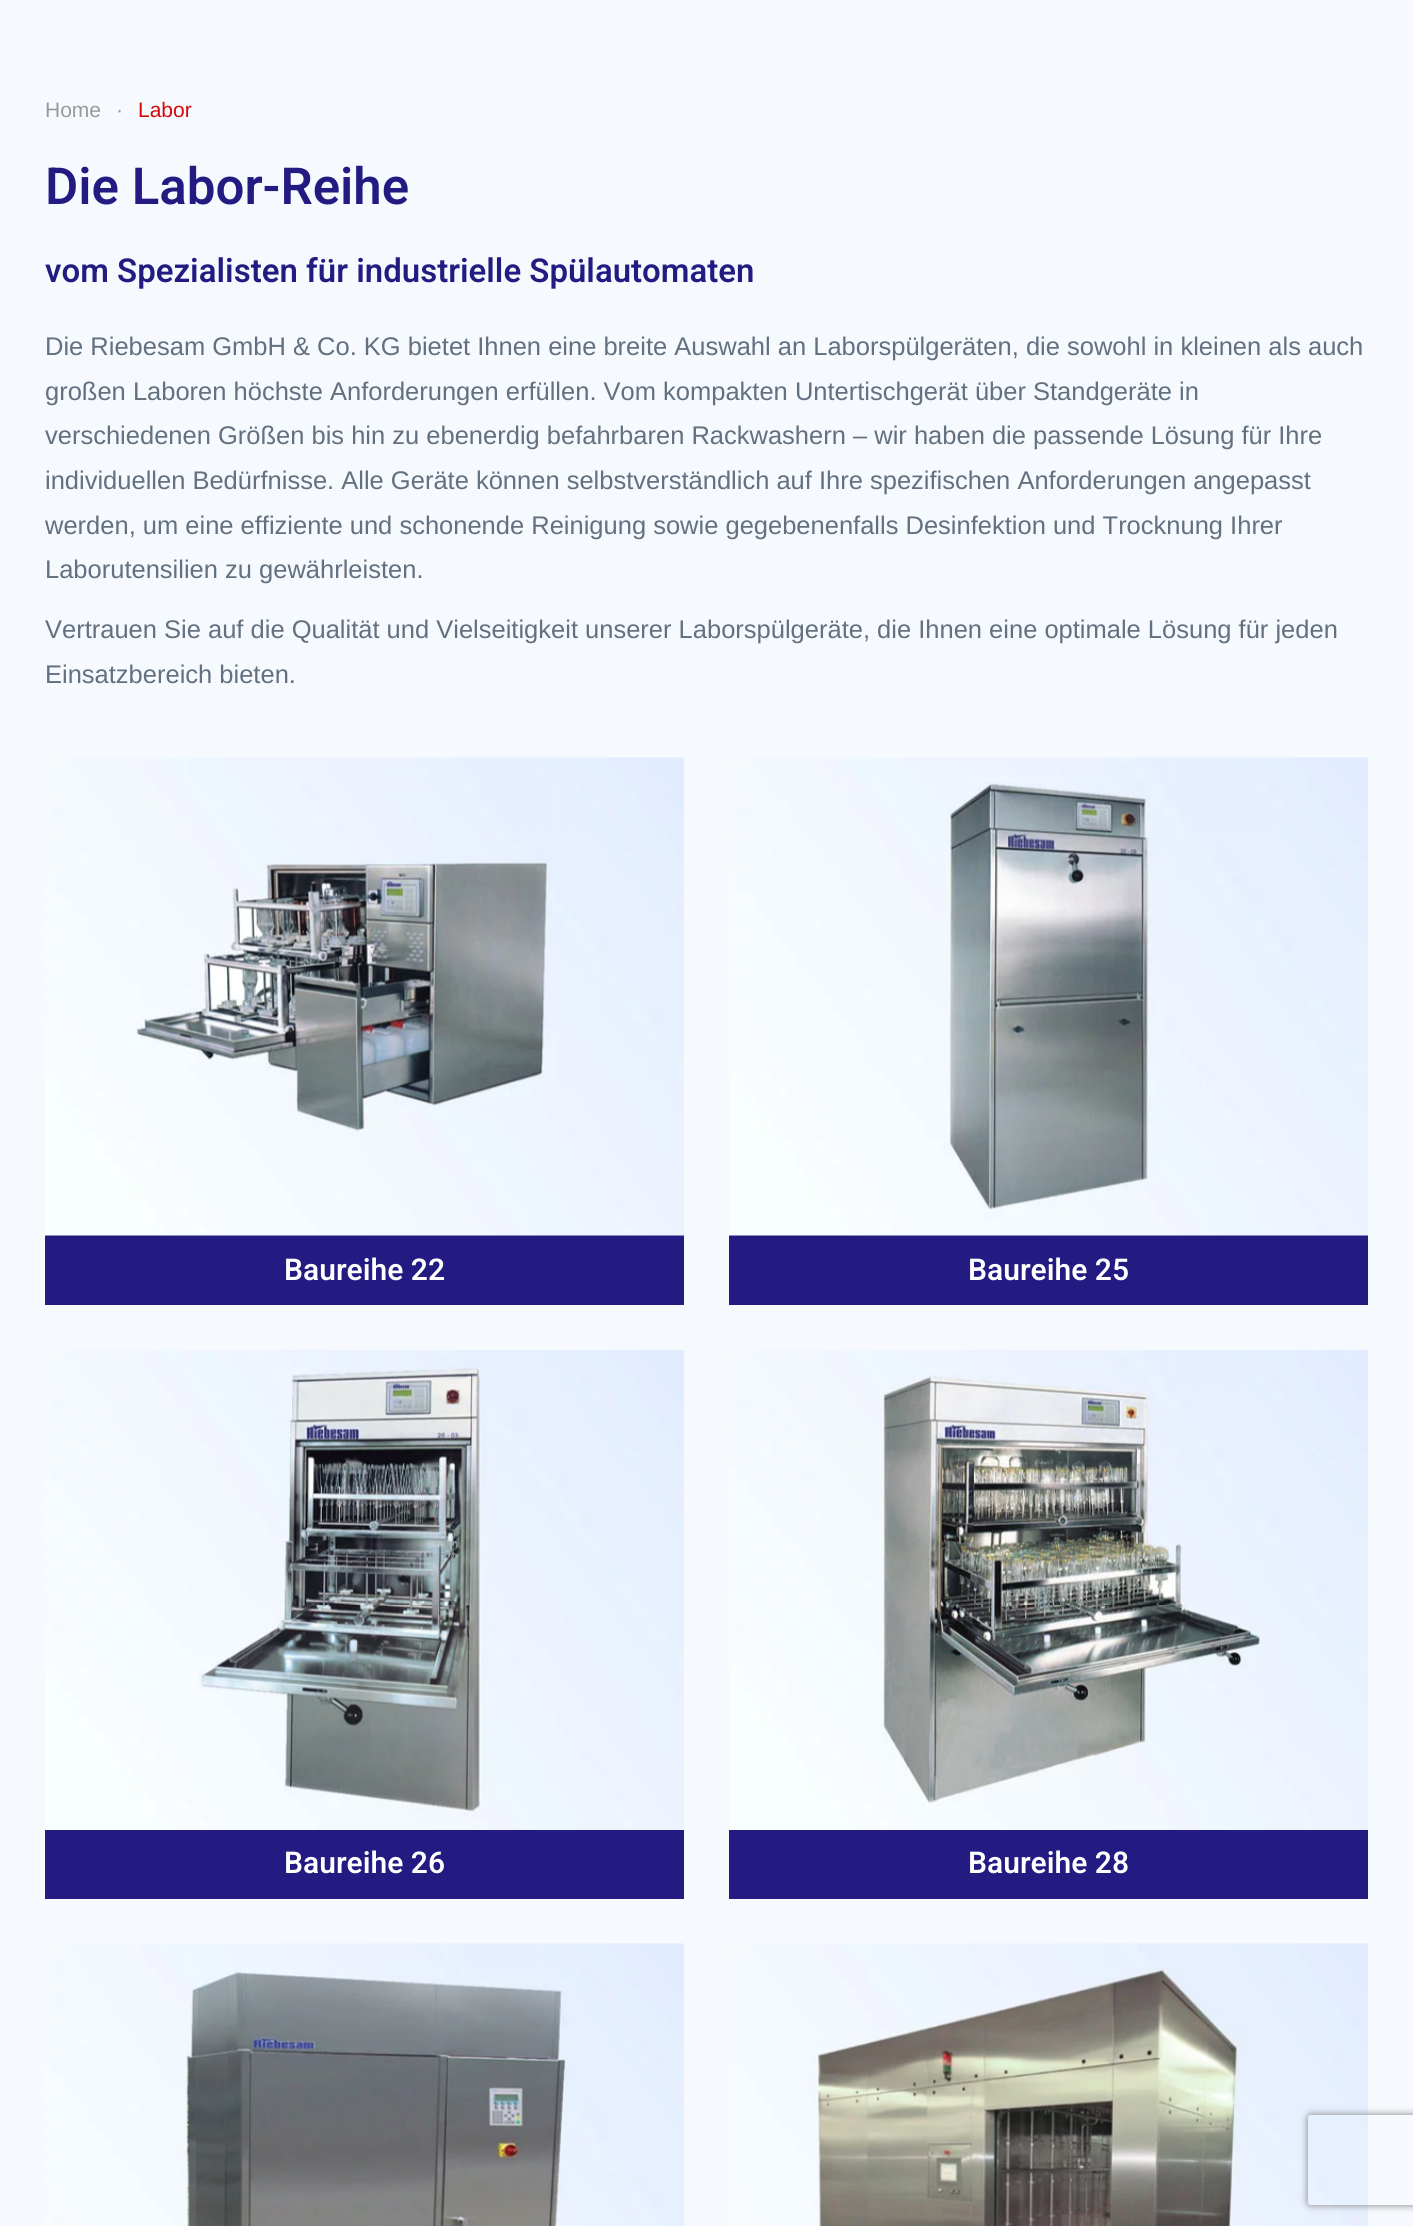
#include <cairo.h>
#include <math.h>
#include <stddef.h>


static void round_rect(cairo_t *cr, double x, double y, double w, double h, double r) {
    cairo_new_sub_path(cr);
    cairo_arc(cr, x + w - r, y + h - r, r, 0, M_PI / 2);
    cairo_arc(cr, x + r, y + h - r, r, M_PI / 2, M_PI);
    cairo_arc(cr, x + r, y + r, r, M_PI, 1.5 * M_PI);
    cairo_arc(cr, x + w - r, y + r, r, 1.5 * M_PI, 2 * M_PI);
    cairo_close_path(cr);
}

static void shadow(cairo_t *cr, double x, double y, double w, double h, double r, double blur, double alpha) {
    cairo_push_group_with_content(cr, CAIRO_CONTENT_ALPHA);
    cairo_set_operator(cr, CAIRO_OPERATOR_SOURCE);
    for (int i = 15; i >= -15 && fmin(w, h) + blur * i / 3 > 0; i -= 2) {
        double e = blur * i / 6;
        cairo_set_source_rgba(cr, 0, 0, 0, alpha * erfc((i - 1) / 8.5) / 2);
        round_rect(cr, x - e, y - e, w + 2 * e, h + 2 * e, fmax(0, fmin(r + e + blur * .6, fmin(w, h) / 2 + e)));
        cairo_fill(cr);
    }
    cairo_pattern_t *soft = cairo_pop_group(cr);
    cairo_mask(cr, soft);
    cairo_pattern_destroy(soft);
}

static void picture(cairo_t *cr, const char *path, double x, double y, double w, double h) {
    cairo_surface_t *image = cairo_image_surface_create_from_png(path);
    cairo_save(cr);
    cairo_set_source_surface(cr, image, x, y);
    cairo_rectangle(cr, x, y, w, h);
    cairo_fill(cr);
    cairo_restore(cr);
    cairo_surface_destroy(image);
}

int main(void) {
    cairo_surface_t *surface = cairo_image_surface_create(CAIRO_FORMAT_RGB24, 1413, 2226);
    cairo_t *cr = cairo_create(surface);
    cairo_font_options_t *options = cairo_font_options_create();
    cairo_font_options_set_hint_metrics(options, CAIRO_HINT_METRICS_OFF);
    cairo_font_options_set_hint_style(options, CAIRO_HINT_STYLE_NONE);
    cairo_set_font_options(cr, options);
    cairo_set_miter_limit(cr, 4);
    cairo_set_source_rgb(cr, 0.961, 0.976, 0.992);
    cairo_paint(cr);
    cairo_select_font_face(cr, "Liberation Sans", CAIRO_FONT_SLANT_NORMAL, CAIRO_FONT_WEIGHT_NORMAL);
    cairo_set_font_size(cr, 21);
    cairo_set_source_rgb(cr, 0.6, 0.6, 0.6);
    cairo_move_to(cr, 45, 117);
    cairo_show_text(cr, "Home");
    cairo_move_to(cr, 116, 117);
    cairo_show_text(cr, "·");
    cairo_set_source_rgb(cr, 0.824, 0.039, 0.039);
    cairo_move_to(cr, 138, 117);
    cairo_show_text(cr, "Labor");
    cairo_select_font_face(cr, "Heebo SemiBold", CAIRO_FONT_SLANT_NORMAL, CAIRO_FONT_WEIGHT_NORMAL);
    cairo_set_font_size(cr, 51);
    cairo_set_source_rgb(cr, 0.137, 0.106, 0.51);
    cairo_move_to(cr, 45, 204);
    cairo_show_text(cr, "Die Labor-Reihe");
    cairo_set_font_size(cr, 33);
    cairo_move_to(cr, 45, 282);
    cairo_show_text(cr, "vom Spezialisten für industrielle Spülautomaten");
    cairo_select_font_face(cr, "Liberation Sans", CAIRO_FONT_SLANT_NORMAL, CAIRO_FONT_WEIGHT_NORMAL);
    cairo_set_font_size(cr, 25.5);
    cairo_set_source_rgb(cr, 0.384, 0.439, 0.498);
    cairo_move_to(cr, 45, 355);
    cairo_show_text(cr, "Die Riebesam GmbH & Co. KG bietet Ihnen eine breite Auswahl an Laborspülgeräten, die sowohl in kleinen als auch");
    cairo_move_to(cr, 45, 400);
    cairo_show_text(cr, "großen Laboren höchste Anforderungen erfüllen. Vom kompakten Untertischgerät über Standgeräte in");
    cairo_move_to(cr, 45, 444);
    cairo_show_text(cr, "verschiedenen Größen bis hin zu ebenerdig befahrbaren Rackwashern – wir haben die passende Lösung für Ihre");
    cairo_move_to(cr, 45, 489);
    cairo_show_text(cr, "individuellen Bedürfnisse. Alle Geräte können selbstverständlich auf Ihre spezifischen Anforderungen angepasst");
    cairo_move_to(cr, 45, 534);
    cairo_show_text(cr, "werden, um eine effiziente und schonende Reinigung sowie gegebenenfalls Desinfektion und Trocknung Ihrer");
    cairo_move_to(cr, 45, 578);
    cairo_show_text(cr, "Laborutensilien zu gewährleisten.");
    cairo_move_to(cr, 45, 638);
    cairo_show_text(cr, "Vertrauen Sie auf die Qualität und Vielseitigkeit unserer Laborspülgeräte, die Ihnen eine optimale Lösung für jeden");
    cairo_move_to(cr, 45, 683);
    cairo_show_text(cr, "Einsatzbereich bieten.");
    cairo_set_source_rgb(cr, 0.137, 0.106, 0.51);
    cairo_rectangle(cr, 45, 1235, 639, 70);
    cairo_fill(cr);
    picture(cr, "img1.png", 45, 757, 639, 479);
    cairo_select_font_face(cr, "Heebo SemiBold", CAIRO_FONT_SLANT_NORMAL, CAIRO_FONT_WEIGHT_NORMAL);
    cairo_set_font_size(cr, 30);
    cairo_set_source_rgb(cr, 1, 1, 1);
    cairo_move_to(cr, 284, 1280);
    cairo_show_text(cr, "Baureihe 22");
    cairo_set_source_rgb(cr, 0.137, 0.106, 0.51);
    cairo_rectangle(cr, 729, 1235, 639, 70);
    cairo_fill(cr);
    picture(cr, "img2.png", 729, 757, 639, 479);
    cairo_set_source_rgb(cr, 1, 1, 1);
    cairo_move_to(cr, 968, 1280);
    cairo_show_text(cr, "Baureihe 25");
    cairo_set_source_rgb(cr, 0.137, 0.106, 0.51);
    cairo_rectangle(cr, 45, 1830, 639, 69);
    cairo_fill(cr);
    picture(cr, "img3.png", 45, 1350, 639, 480);
    cairo_set_source_rgb(cr, 1, 1, 1);
    cairo_move_to(cr, 284, 1873);
    cairo_show_text(cr, "Baureihe 26");
    cairo_set_source_rgb(cr, 0.137, 0.106, 0.51);
    cairo_rectangle(cr, 729, 1830, 639, 69);
    cairo_fill(cr);
    picture(cr, "img4.png", 729, 1350, 639, 480);
    cairo_set_source_rgb(cr, 1, 1, 1);
    cairo_move_to(cr, 968, 1873);
    cairo_show_text(cr, "Baureihe 28");
    picture(cr, "img5.png", 45, 1943, 639, 283);
    picture(cr, "img6.png", 729, 1943, 639, 283);
    cairo_save(cr);
    cairo_set_fill_rule(cr, CAIRO_FILL_RULE_EVEN_ODD);
    cairo_new_path(cr);
    cairo_move_to(cr, 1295, 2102);
    cairo_line_to(cr, 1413, 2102);
    cairo_line_to(cr, 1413, 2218);
    cairo_line_to(cr, 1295, 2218);
    cairo_close_path(cr);
    cairo_move_to(cr, 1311, 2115);
    cairo_line_to(cr, 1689, 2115);
    cairo_curve_to(cr, 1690.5, 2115, 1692, 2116.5, 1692, 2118);
    cairo_line_to(cr, 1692, 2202);
    cairo_curve_to(cr, 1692, 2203.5, 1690.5, 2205, 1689, 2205);
    cairo_line_to(cr, 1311, 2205);
    cairo_curve_to(cr, 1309.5, 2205, 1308, 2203.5, 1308, 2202);
    cairo_line_to(cr, 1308, 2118);
    cairo_curve_to(cr, 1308, 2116.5, 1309.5, 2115, 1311, 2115);
    cairo_close_path(cr);
    cairo_clip(cr);
    cairo_set_source_rgb(cr, 0.502, 0.502, 0.502);
    shadow(cr, 1308, 2115, 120, 90, 3, 4, 1);
    cairo_restore(cr);
    cairo_surface_write_to_png(surface, "page.png");
    cairo_font_options_destroy(options);
    cairo_destroy(cr);
    cairo_surface_destroy(surface);
    return 0;
}
